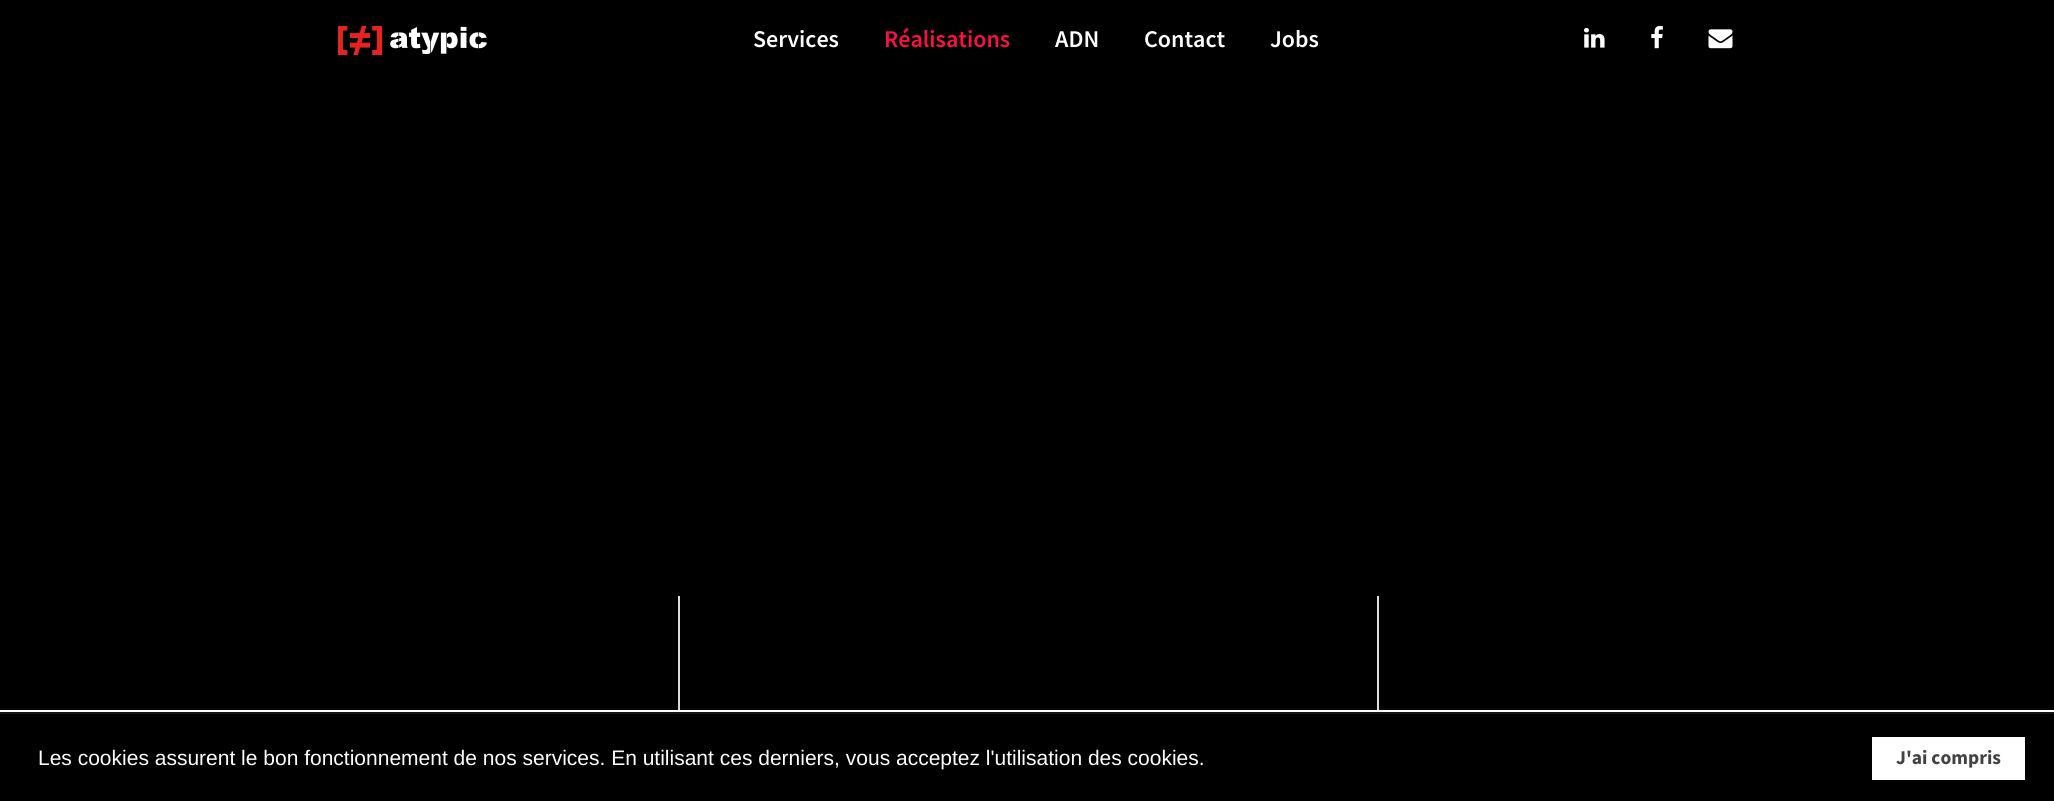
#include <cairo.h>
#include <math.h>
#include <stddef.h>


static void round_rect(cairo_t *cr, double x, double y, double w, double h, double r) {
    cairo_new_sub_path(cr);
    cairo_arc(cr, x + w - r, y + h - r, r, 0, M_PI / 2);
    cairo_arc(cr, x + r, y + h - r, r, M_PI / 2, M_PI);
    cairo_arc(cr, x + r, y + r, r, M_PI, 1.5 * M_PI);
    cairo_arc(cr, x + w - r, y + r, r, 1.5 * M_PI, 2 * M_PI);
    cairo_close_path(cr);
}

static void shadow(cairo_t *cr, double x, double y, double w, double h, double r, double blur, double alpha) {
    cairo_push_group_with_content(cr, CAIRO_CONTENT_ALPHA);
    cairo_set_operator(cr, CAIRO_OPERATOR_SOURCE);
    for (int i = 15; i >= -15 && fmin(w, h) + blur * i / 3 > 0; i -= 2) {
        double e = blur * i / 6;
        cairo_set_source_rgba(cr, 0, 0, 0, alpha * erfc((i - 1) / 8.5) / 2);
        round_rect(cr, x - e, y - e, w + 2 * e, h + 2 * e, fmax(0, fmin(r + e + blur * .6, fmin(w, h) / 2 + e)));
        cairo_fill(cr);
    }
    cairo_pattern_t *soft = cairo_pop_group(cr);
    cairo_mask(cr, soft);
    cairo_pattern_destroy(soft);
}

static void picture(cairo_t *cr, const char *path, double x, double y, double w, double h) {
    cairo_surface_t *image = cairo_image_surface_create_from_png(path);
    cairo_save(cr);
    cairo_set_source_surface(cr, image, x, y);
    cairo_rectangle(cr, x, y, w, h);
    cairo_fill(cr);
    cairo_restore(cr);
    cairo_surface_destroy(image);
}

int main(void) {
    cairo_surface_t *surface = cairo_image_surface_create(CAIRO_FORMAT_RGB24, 2054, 801);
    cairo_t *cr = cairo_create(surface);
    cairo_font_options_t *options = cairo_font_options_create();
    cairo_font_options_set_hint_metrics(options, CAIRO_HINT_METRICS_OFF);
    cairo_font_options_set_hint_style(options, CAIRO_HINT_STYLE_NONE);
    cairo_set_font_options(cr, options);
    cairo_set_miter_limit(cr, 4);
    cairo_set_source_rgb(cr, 0, 0, 0);
    cairo_paint(cr);
    picture(cr, "img1.png", 338, 26, 149, 30);
    cairo_select_font_face(cr, "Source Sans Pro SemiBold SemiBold", CAIRO_FONT_SLANT_NORMAL, CAIRO_FONT_WEIGHT_NORMAL);
    cairo_set_font_size(cr, 24);
    cairo_set_source_rgb(cr, 1, 1, 1);
    cairo_move_to(cr, 753, 47);
    cairo_show_text(cr, "Services");
    cairo_set_source_rgb(cr, 0.988, 0.063, 0.267);
    cairo_move_to(cr, 884, 47);
    cairo_show_text(cr, "Réalisations");
    cairo_set_source_rgb(cr, 1, 1, 1);
    cairo_move_to(cr, 1055, 47);
    cairo_show_text(cr, "ADN");
    cairo_move_to(cr, 1144, 47);
    cairo_show_text(cr, "Contact");
    cairo_move_to(cr, 1270, 47);
    cairo_show_text(cr, "Jobs");
    picture(cr, "img2.png", 1584, 27, 21, 21);
    picture(cr, "img3.png", 1651, 25, 12, 24);
    picture(cr, "img4.png", 1708, 29, 25, 20);
    cairo_rectangle(cr, 0, 710, 2054, 2);
    cairo_fill(cr);
    cairo_set_source_rgb(cr, 0.867, 0.867, 0.867);
    cairo_rectangle(cr, 678, 596, 2, 114);
    cairo_fill(cr);
    cairo_rectangle(cr, 1377, 596, 2, 114);
    cairo_fill(cr);
    cairo_set_source_rgb(cr, 1, 1, 1);
    shadow(cr, -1, 714, 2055, 87, 0, 4, 0.2);
    cairo_set_source_rgb(cr, 0, 0, 0);
    cairo_rectangle(cr, 0, 714, 2054, 87);
    cairo_fill(cr);
    cairo_select_font_face(cr, "Liberation Sans", CAIRO_FONT_SLANT_NORMAL, CAIRO_FONT_WEIGHT_NORMAL);
    cairo_set_font_size(cr, 21);
    cairo_set_source_rgb(cr, 1, 1, 1);
    cairo_move_to(cr, 38, 765);
    cairo_show_text(cr, "Les cookies assurent le bon fonctionnement de nos services. En utilisant ces derniers, vous acceptez l'utilisation des cookies.");
    cairo_rectangle(cr, 1872, 737, 153, 43);
    cairo_fill(cr);
    cairo_select_font_face(cr, "Source Sans Pro", CAIRO_FONT_SLANT_NORMAL, CAIRO_FONT_WEIGHT_BOLD);
    cairo_set_font_size(cr, 19.5);
    cairo_set_source_rgb(cr, 0.263, 0.259, 0.259);
    cairo_move_to(cr, 1896, 764);
    cairo_show_text(cr, "J'ai compris");
    cairo_surface_write_to_png(surface, "page.png");
    cairo_font_options_destroy(options);
    cairo_destroy(cr);
    cairo_surface_destroy(surface);
    return 0;
}
